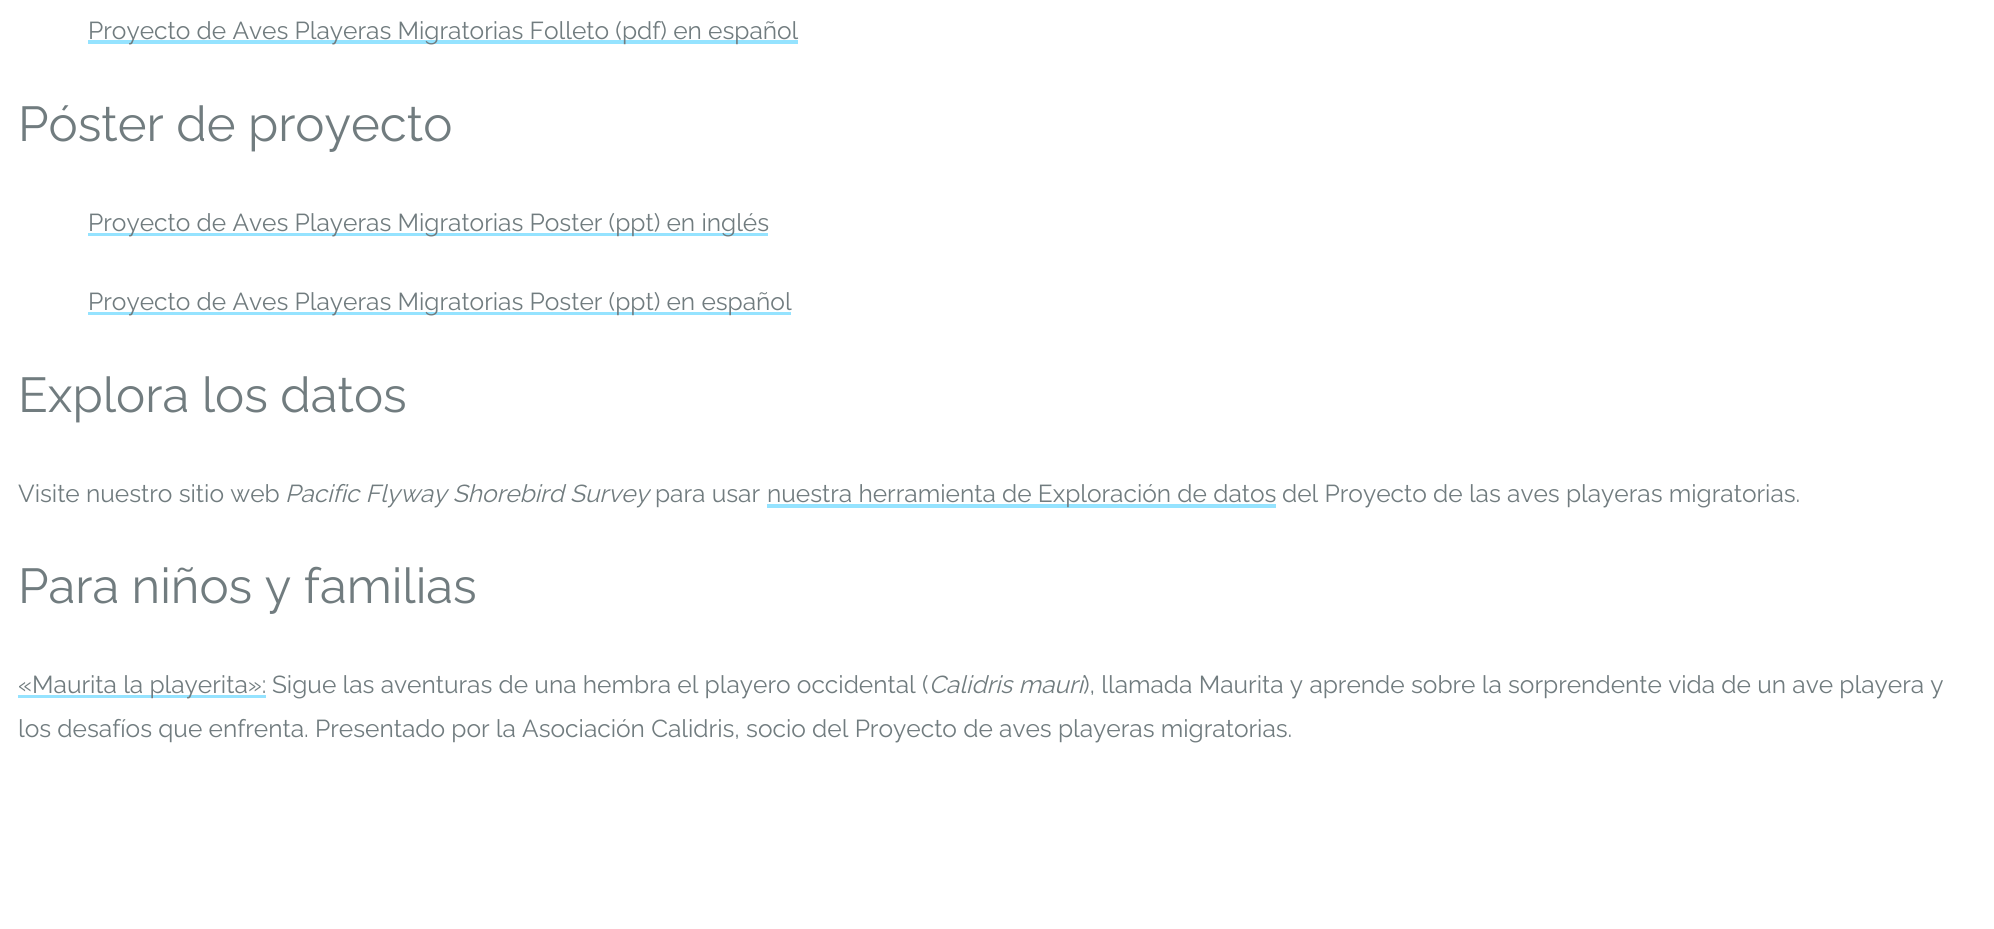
#include <cairo.h>
#include <math.h>
#include <stddef.h>


int main(void) {
    cairo_surface_t *surface = cairo_image_surface_create(CAIRO_FORMAT_RGB24, 1994, 929);
    cairo_t *cr = cairo_create(surface);
    cairo_font_options_t *options = cairo_font_options_create();
    cairo_font_options_set_hint_metrics(options, CAIRO_HINT_METRICS_OFF);
    cairo_font_options_set_hint_style(options, CAIRO_HINT_STYLE_NONE);
    cairo_set_font_options(cr, options);
    cairo_set_miter_limit(cr, 4);
    cairo_set_source_rgb(cr, 1, 1, 1);
    cairo_paint(cr);
    cairo_set_source_rgb(cr, 0.584, 0.89, 1);
    cairo_rectangle(cr, 88, 40, 710, 4);
    cairo_fill(cr);
    cairo_select_font_face(cr, "Raleway", CAIRO_FONT_SLANT_NORMAL, CAIRO_FONT_WEIGHT_NORMAL);
    cairo_set_font_size(cr, 24.5);
    cairo_set_source_rgb(cr, 0.443, 0.486, 0.498);
    cairo_move_to(cr, 88, 39);
    cairo_show_text(cr, "Proyecto de Aves Playeras Migratorias Folleto (pdf) en español");
    cairo_set_font_size(cr, 49);
    cairo_move_to(cr, 18, 141);
    cairo_show_text(cr, "Póster de proyecto");
    cairo_set_source_rgb(cr, 0.584, 0.89, 1);
    cairo_rectangle(cr, 88, 233, 680, 3);
    cairo_fill(cr);
    cairo_set_font_size(cr, 24.5);
    cairo_set_source_rgb(cr, 0.443, 0.486, 0.498);
    cairo_move_to(cr, 88, 231);
    cairo_show_text(cr, "Proyecto de Aves Playeras Migratorias Poster (ppt) en inglés");
    cairo_set_source_rgb(cr, 0.584, 0.89, 1);
    cairo_rectangle(cr, 88, 312, 703, 3);
    cairo_fill(cr);
    cairo_set_source_rgb(cr, 0.443, 0.486, 0.498);
    cairo_move_to(cr, 88, 310);
    cairo_show_text(cr, "Proyecto de Aves Playeras Migratorias Poster (ppt) en español");
    cairo_set_font_size(cr, 49);
    cairo_move_to(cr, 18, 412);
    cairo_show_text(cr, "Explora los datos");
    cairo_set_font_size(cr, 24.5);
    cairo_move_to(cr, 18, 502);
    cairo_show_text(cr, "Visite nuestro sitio web");
    cairo_select_font_face(cr, "Raleway", CAIRO_FONT_SLANT_ITALIC, CAIRO_FONT_WEIGHT_NORMAL);
    cairo_move_to(cr, 285, 502);
    cairo_show_text(cr, "Pacific Flyway Shorebird Survey");
    cairo_select_font_face(cr, "Raleway", CAIRO_FONT_SLANT_NORMAL, CAIRO_FONT_WEIGHT_NORMAL);
    cairo_move_to(cr, 655, 502);
    cairo_show_text(cr, "para usar");
    cairo_set_source_rgb(cr, 0.584, 0.89, 1);
    cairo_rectangle(cr, 767, 504, 509, 4);
    cairo_fill(cr);
    cairo_set_source_rgb(cr, 0.443, 0.486, 0.498);
    cairo_move_to(cr, 767, 502);
    cairo_show_text(cr, "nuestra herramienta de Exploración de datos");
    cairo_move_to(cr, 1282, 502);
    cairo_show_text(cr, "del Proyecto de las aves playeras migratorias.");
    cairo_set_font_size(cr, 49);
    cairo_move_to(cr, 18, 603);
    cairo_show_text(cr, "Para niños y familias");
    cairo_set_source_rgb(cr, 0.584, 0.89, 1);
    cairo_rectangle(cr, 18, 695, 248, 3);
    cairo_fill(cr);
    cairo_set_font_size(cr, 24.5);
    cairo_set_source_rgb(cr, 0.443, 0.486, 0.498);
    cairo_move_to(cr, 18, 693);
    cairo_show_text(cr, "«Maurita la playerita»:");
    cairo_move_to(cr, 272, 693);
    cairo_show_text(cr, "Sigue las aventuras de una hembra el playero occidental (");
    cairo_select_font_face(cr, "Raleway", CAIRO_FONT_SLANT_ITALIC, CAIRO_FONT_WEIGHT_NORMAL);
    cairo_move_to(cr, 929, 693);
    cairo_show_text(cr, "Calidris mauri");
    cairo_select_font_face(cr, "Raleway", CAIRO_FONT_SLANT_NORMAL, CAIRO_FONT_WEIGHT_NORMAL);
    cairo_move_to(cr, 1083, 693);
    cairo_show_text(cr, "), llamada Maurita y aprende sobre la sorprendente vida de un ave playera y");
    cairo_move_to(cr, 18, 737);
    cairo_show_text(cr, "los desafíos que enfrenta. Presentado por la Asociación Calidris, socio del Proyecto de aves playeras migratorias.");
    cairo_surface_write_to_png(surface, "page.png");
    cairo_font_options_destroy(options);
    cairo_destroy(cr);
    cairo_surface_destroy(surface);
    return 0;
}
